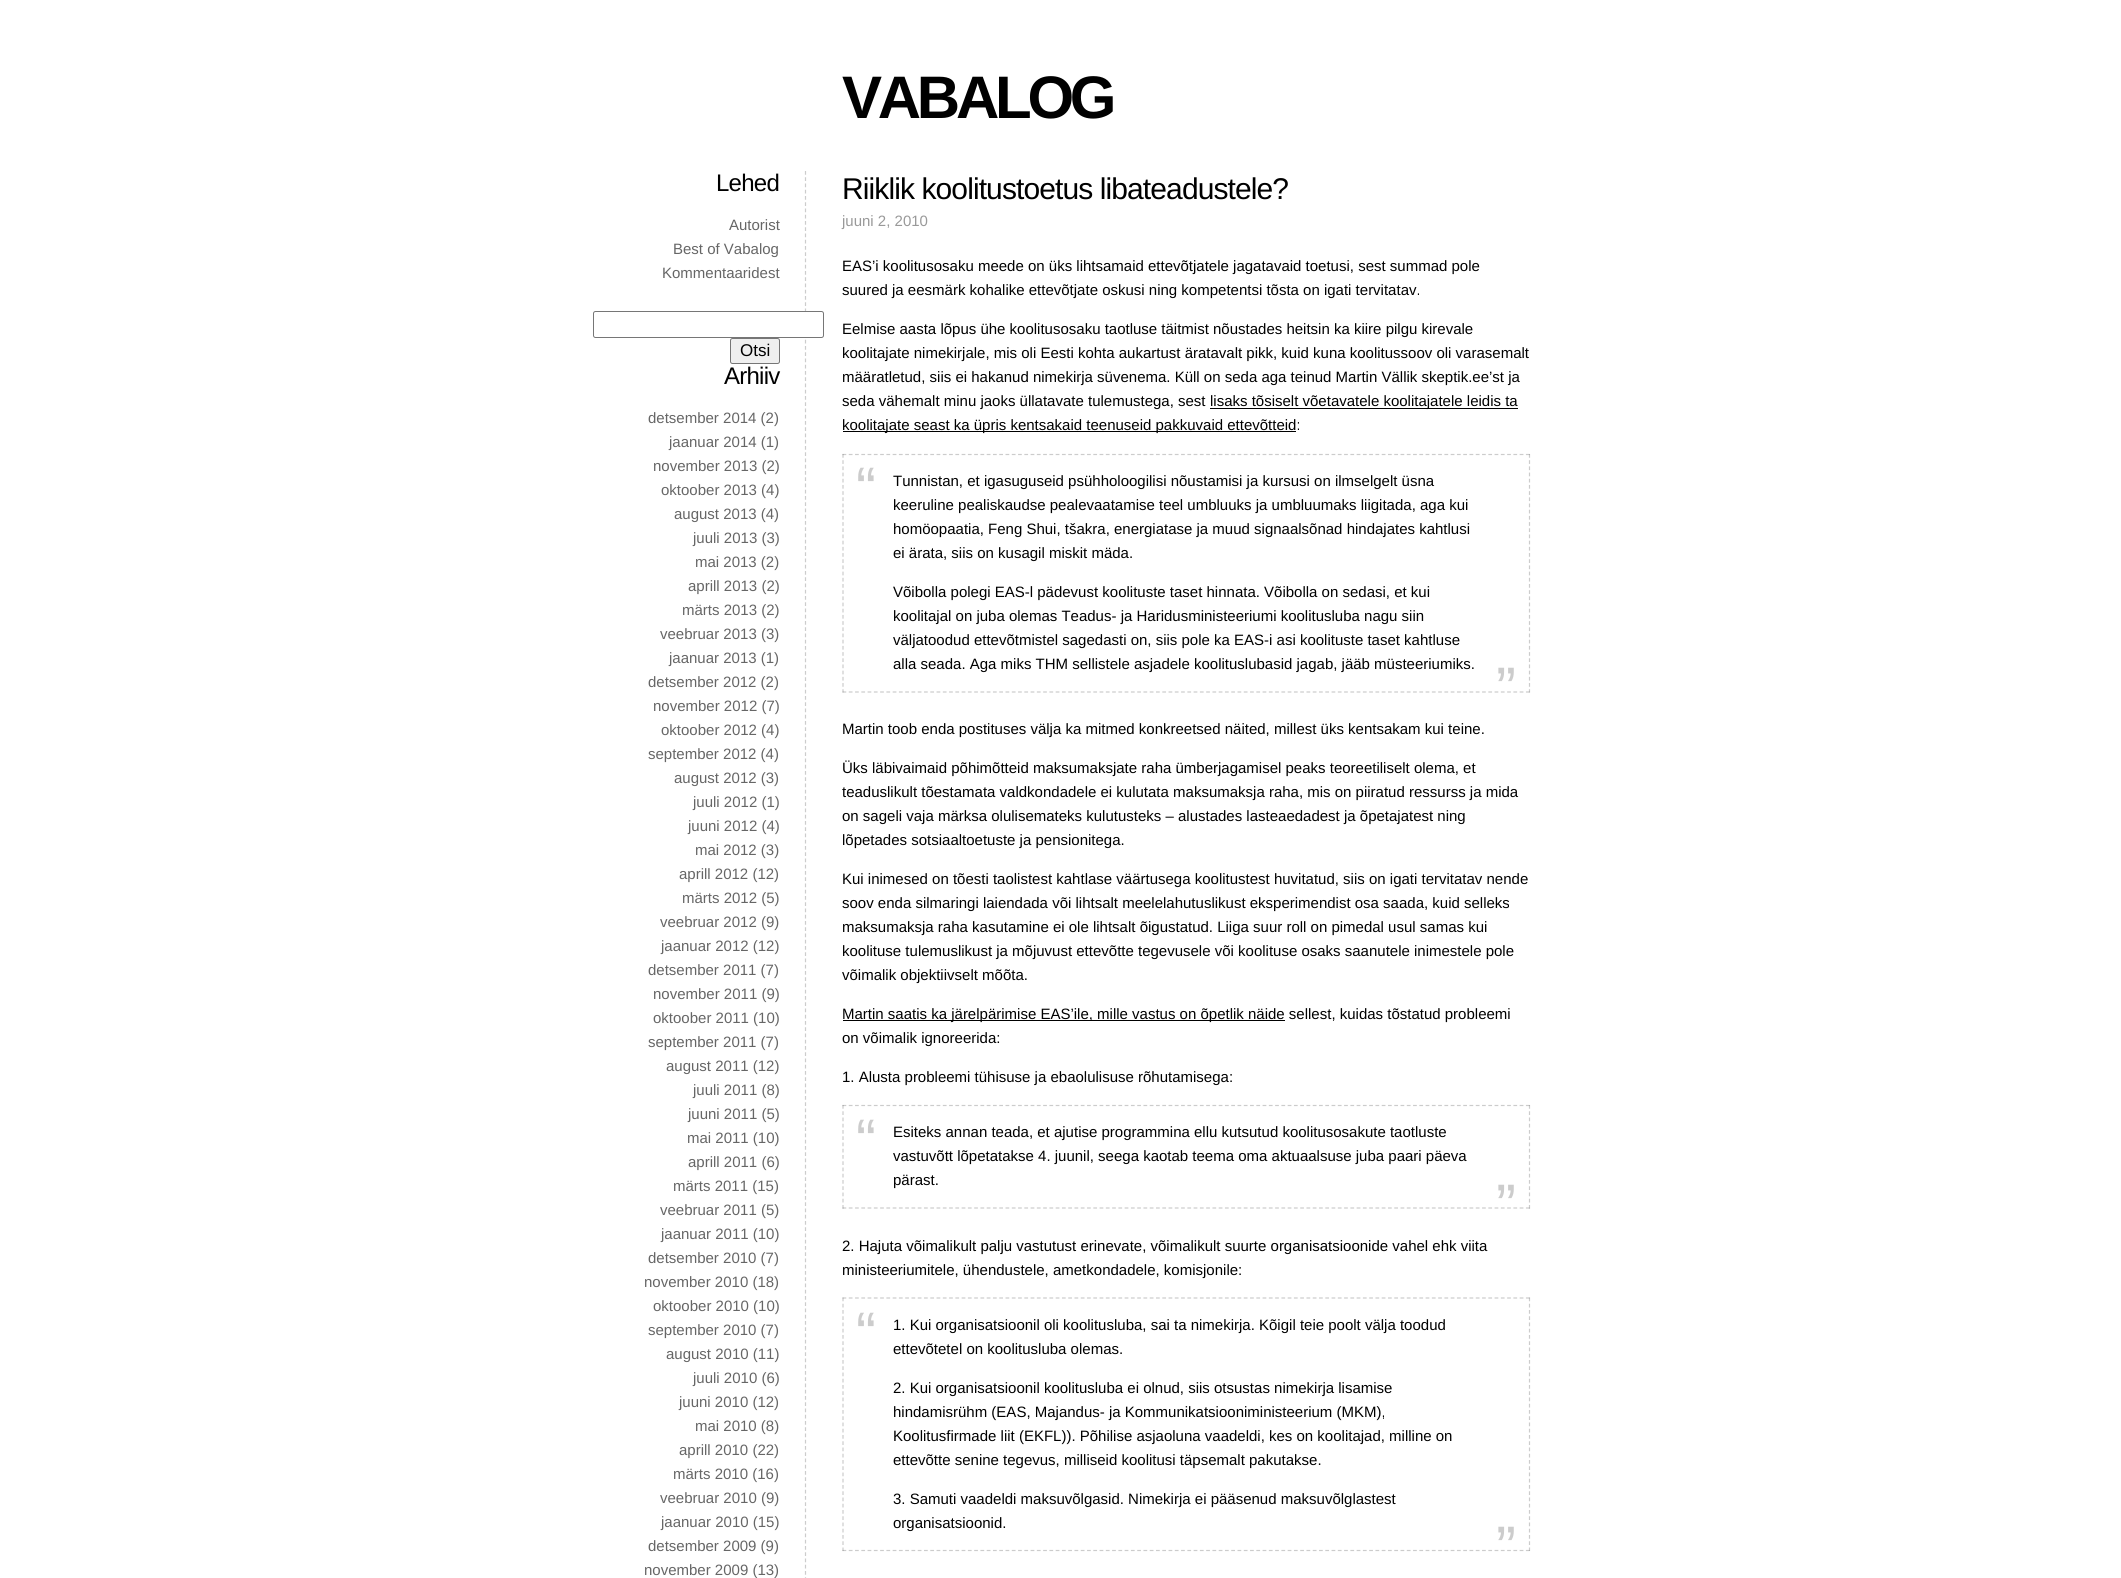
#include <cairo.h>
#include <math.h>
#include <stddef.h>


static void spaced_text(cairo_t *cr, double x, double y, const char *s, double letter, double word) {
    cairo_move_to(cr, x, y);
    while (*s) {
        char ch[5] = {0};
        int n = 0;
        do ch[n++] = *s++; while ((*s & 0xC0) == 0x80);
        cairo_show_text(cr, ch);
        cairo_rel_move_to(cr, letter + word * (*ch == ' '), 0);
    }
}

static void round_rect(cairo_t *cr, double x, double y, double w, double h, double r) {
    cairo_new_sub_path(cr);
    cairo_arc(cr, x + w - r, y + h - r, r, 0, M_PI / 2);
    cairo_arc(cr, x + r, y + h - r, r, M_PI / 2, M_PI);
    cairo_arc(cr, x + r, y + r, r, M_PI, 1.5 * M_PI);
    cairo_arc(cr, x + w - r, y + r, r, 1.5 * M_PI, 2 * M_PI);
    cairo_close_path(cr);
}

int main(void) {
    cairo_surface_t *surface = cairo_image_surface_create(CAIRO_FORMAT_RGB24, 2121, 1578);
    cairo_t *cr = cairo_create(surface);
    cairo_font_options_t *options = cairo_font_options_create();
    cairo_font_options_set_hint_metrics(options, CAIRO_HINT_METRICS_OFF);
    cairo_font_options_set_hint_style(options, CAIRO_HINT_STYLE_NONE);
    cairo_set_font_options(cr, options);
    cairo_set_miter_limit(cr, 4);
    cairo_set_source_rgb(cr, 1, 1, 1);
    cairo_paint(cr);
    cairo_select_font_face(cr, "Liberation Sans", CAIRO_FONT_SLANT_NORMAL, CAIRO_FONT_WEIGHT_BOLD);
    cairo_set_font_size(cr, 60);
    cairo_set_source_rgb(cr, 0, 0, 0);
    spaced_text(cr, 842, 118, "VABALOG", -4.25, 0);
    cairo_new_path(cr);
    cairo_move_to(cr, 805.5, 171);
    cairo_line_to(cr, 805.5, 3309);
    cairo_set_source_rgb(cr, 0.8, 0.8, 0.8);
    cairo_set_line_width(cr, 1.2);
    cairo_set_dash(cr, (double[]){3.75, 2.5}, 2, 0);
    cairo_stroke(cr);
    cairo_select_font_face(cr, "Liberation Sans", CAIRO_FONT_SLANT_NORMAL, CAIRO_FONT_WEIGHT_NORMAL);
    cairo_set_font_size(cr, 24);
    cairo_set_source_rgb(cr, 0, 0, 0);
    spaced_text(cr, 716, 191, "Lehed", -0.75, 0);
    cairo_set_font_size(cr, 15);
    cairo_set_source_rgb(cr, 0.4, 0.4, 0.4);
    cairo_move_to(cr, 729, 230);
    cairo_show_text(cr, "Autorist");
    cairo_move_to(cr, 673, 254);
    cairo_show_text(cr, "Best of Vabalog");
    cairo_move_to(cr, 662, 278);
    cairo_show_text(cr, "Kommentaaridest");
    cairo_set_source_rgb(cr, 1, 1, 1);
    round_rect(cr, 593.5, 311.5, 230, 26, 2);
    cairo_fill_preserve(cr);
    cairo_set_source_rgb(cr, 0.463, 0.463, 0.463);
    cairo_set_line_width(cr, 1);
    cairo_set_dash(cr, NULL, 0, 0);
    cairo_stroke(cr);
    cairo_set_source_rgb(cr, 0.937, 0.937, 0.937);
    round_rect(cr, 730.5, 338.5, 49, 25, 2);
    cairo_fill_preserve(cr);
    cairo_set_source_rgb(cr, 0.463, 0.463, 0.463);
    cairo_stroke(cr);
    cairo_set_font_size(cr, 17);
    cairo_set_source_rgb(cr, 0, 0, 0);
    cairo_move_to(cr, 740, 356);
    cairo_show_text(cr, "Otsi");
    cairo_set_font_size(cr, 24);
    spaced_text(cr, 724, 384, "Arhiiv", -0.75, 0);
    cairo_set_font_size(cr, 15);
    cairo_set_source_rgb(cr, 0.4, 0.4, 0.4);
    cairo_move_to(cr, 648, 423);
    cairo_show_text(cr, "detsember 2014 (2)");
    cairo_move_to(cr, 669, 447);
    cairo_show_text(cr, "jaanuar 2014 (1)");
    cairo_move_to(cr, 653, 471);
    cairo_show_text(cr, "november 2013 (2)");
    cairo_move_to(cr, 661, 495);
    cairo_show_text(cr, "oktoober 2013 (4)");
    cairo_move_to(cr, 674, 519);
    cairo_show_text(cr, "august 2013 (4)");
    cairo_move_to(cr, 693, 543);
    cairo_show_text(cr, "juuli 2013 (3)");
    cairo_move_to(cr, 695, 567);
    cairo_show_text(cr, "mai 2013 (2)");
    cairo_move_to(cr, 688, 591);
    cairo_show_text(cr, "aprill 2013 (2)");
    cairo_move_to(cr, 682, 615);
    cairo_show_text(cr, "märts 2013 (2)");
    cairo_move_to(cr, 660, 639);
    cairo_show_text(cr, "veebruar 2013 (3)");
    cairo_move_to(cr, 669, 663);
    cairo_show_text(cr, "jaanuar 2013 (1)");
    cairo_move_to(cr, 648, 687);
    cairo_show_text(cr, "detsember 2012 (2)");
    cairo_move_to(cr, 653, 711);
    cairo_show_text(cr, "november 2012 (7)");
    cairo_move_to(cr, 661, 735);
    cairo_show_text(cr, "oktoober 2012 (4)");
    cairo_move_to(cr, 648, 759);
    cairo_show_text(cr, "september 2012 (4)");
    cairo_move_to(cr, 674, 783);
    cairo_show_text(cr, "august 2012 (3)");
    cairo_move_to(cr, 693, 807);
    cairo_show_text(cr, "juuli 2012 (1)");
    cairo_move_to(cr, 688, 831);
    cairo_show_text(cr, "juuni 2012 (4)");
    cairo_move_to(cr, 695, 855);
    cairo_show_text(cr, "mai 2012 (3)");
    cairo_move_to(cr, 679, 879);
    cairo_show_text(cr, "aprill 2012 (12)");
    cairo_move_to(cr, 682, 903);
    cairo_show_text(cr, "märts 2012 (5)");
    cairo_move_to(cr, 660, 927);
    cairo_show_text(cr, "veebruar 2012 (9)");
    cairo_move_to(cr, 661, 951);
    cairo_show_text(cr, "jaanuar 2012 (12)");
    cairo_move_to(cr, 648, 975);
    cairo_show_text(cr, "detsember 2011 (7)");
    cairo_move_to(cr, 653, 999);
    cairo_show_text(cr, "november 2011 (9)");
    cairo_move_to(cr, 653, 1023);
    cairo_show_text(cr, "oktoober 2011 (10)");
    cairo_move_to(cr, 648, 1047);
    cairo_show_text(cr, "september 2011 (7)");
    cairo_move_to(cr, 666, 1071);
    cairo_show_text(cr, "august 2011 (12)");
    cairo_move_to(cr, 693, 1095);
    cairo_show_text(cr, "juuli 2011 (8)");
    cairo_move_to(cr, 688, 1119);
    cairo_show_text(cr, "juuni 2011 (5)");
    cairo_move_to(cr, 687, 1143);
    cairo_show_text(cr, "mai 2011 (10)");
    cairo_move_to(cr, 688, 1167);
    cairo_show_text(cr, "aprill 2011 (6)");
    cairo_move_to(cr, 673, 1191);
    cairo_show_text(cr, "märts 2011 (15)");
    cairo_move_to(cr, 660, 1215);
    cairo_show_text(cr, "veebruar 2011 (5)");
    cairo_move_to(cr, 661, 1239);
    cairo_show_text(cr, "jaanuar 2011 (10)");
    cairo_move_to(cr, 648, 1263);
    cairo_show_text(cr, "detsember 2010 (7)");
    cairo_move_to(cr, 644, 1287);
    cairo_show_text(cr, "november 2010 (18)");
    cairo_move_to(cr, 653, 1311);
    cairo_show_text(cr, "oktoober 2010 (10)");
    cairo_move_to(cr, 648, 1335);
    cairo_show_text(cr, "september 2010 (7)");
    cairo_move_to(cr, 666, 1359);
    cairo_show_text(cr, "august 2010 (11)");
    cairo_move_to(cr, 693, 1383);
    cairo_show_text(cr, "juuli 2010 (6)");
    cairo_move_to(cr, 679, 1407);
    cairo_show_text(cr, "juuni 2010 (12)");
    cairo_move_to(cr, 695, 1431);
    cairo_show_text(cr, "mai 2010 (8)");
    cairo_move_to(cr, 679, 1455);
    cairo_show_text(cr, "aprill 2010 (22)");
    cairo_move_to(cr, 673, 1479);
    cairo_show_text(cr, "märts 2010 (16)");
    cairo_move_to(cr, 660, 1503);
    cairo_show_text(cr, "veebruar 2010 (9)");
    cairo_move_to(cr, 661, 1527);
    cairo_show_text(cr, "jaanuar 2010 (15)");
    cairo_move_to(cr, 648, 1551);
    cairo_show_text(cr, "detsember 2009 (9)");
    cairo_move_to(cr, 644, 1575);
    cairo_show_text(cr, "november 2009 (13)");
    cairo_set_font_size(cr, 30);
    cairo_set_source_rgb(cr, 0, 0, 0);
    spaced_text(cr, 842, 199, "Riiklik koolitustoetus libateadustele?", -0.9, 0);
    cairo_set_font_size(cr, 15);
    cairo_set_source_rgb(cr, 0.6, 0.6, 0.6);
    cairo_move_to(cr, 842, 226);
    cairo_show_text(cr, "juuni 2, 2010");
    cairo_set_source_rgb(cr, 0, 0, 0);
    cairo_move_to(cr, 842, 271);
    cairo_show_text(cr, "EAS’i koolitusosaku meede on üks lihtsamaid ettevõtjatele jagatavaid toetusi, sest summad pole");
    cairo_move_to(cr, 842, 295);
    cairo_show_text(cr, "suured ja eesmärk kohalike ettevõtjate oskusi ning kompetentsi tõsta on igati tervitatav.");
    cairo_move_to(cr, 842, 334);
    cairo_show_text(cr, "Eelmise aasta lõpus ühe koolitusosaku taotluse täitmist nõustades heitsin ka kiire pilgu kirevale");
    cairo_move_to(cr, 842, 358);
    cairo_show_text(cr, "koolitajate nimekirjale, mis oli Eesti kohta aukartust äratavalt pikk, kuid kuna koolitussoov oli varasemalt");
    cairo_move_to(cr, 842, 382);
    cairo_show_text(cr, "määratletud, siis ei hakanud nimekirja süvenema. Küll on seda aga teinud Martin Vällik skeptik.ee’st ja");
    cairo_move_to(cr, 842, 406);
    cairo_show_text(cr, "seda vähemalt minu jaoks üllatavate tulemustega, sest");
    cairo_rectangle(cr, 1210, 408, 308, 1);
    cairo_fill(cr);
    cairo_move_to(cr, 1210, 406);
    cairo_show_text(cr, "lisaks tõsiselt võetavatele koolitajatele leidis ta");
    cairo_rectangle(cr, 843, 431, 453, 1);
    cairo_fill(cr);
    cairo_move_to(cr, 842, 430);
    cairo_show_text(cr, "koolitajate seast ka üpris kentsakaid teenuseid pakkuvaid ettevõtteid:");
    cairo_new_path(cr);
    cairo_move_to(cr, 842.5, 454.5);
    cairo_line_to(cr, 1530, 454.5);
    cairo_set_source_rgb(cr, 0.8, 0.8, 0.8);
    cairo_set_line_width(cr, 1.2);
    cairo_set_dash(cr, (double[]){3.75, 2.52}, 2, 0);
    cairo_stroke(cr);
    cairo_new_path(cr);
    cairo_move_to(cr, 1529.5, 454);
    cairo_line_to(cr, 1529.5, 692.5);
    cairo_set_source_rgba(cr, 0, 0, 0, 0.2);
    cairo_set_dash(cr, (double[]){3.75, 2.44}, 2, 0);
    cairo_stroke(cr);
    cairo_new_path(cr);
    cairo_move_to(cr, 842.5, 692);
    cairo_line_to(cr, 1530, 692);
    cairo_set_dash(cr, (double[]){3.75, 2.52}, 2, 0);
    cairo_stroke(cr);
    cairo_new_path(cr);
    cairo_move_to(cr, 843, 454);
    cairo_line_to(cr, 843, 692.5);
    cairo_set_dash(cr, (double[]){3.75, 2.44}, 2, 0);
    cairo_stroke(cr);
    cairo_set_font_size(cr, 60);
    cairo_set_source_rgb(cr, 0.8, 0.8, 0.8);
    cairo_move_to(cr, 856, 509);
    cairo_show_text(cr, "“");
    cairo_set_font_size(cr, 15);
    cairo_set_source_rgb(cr, 0, 0, 0);
    cairo_move_to(cr, 893, 486);
    cairo_show_text(cr, "Tunnistan, et igasuguseid psühholoogilisi nõustamisi ja kursusi on ilmselgelt üsna");
    cairo_move_to(cr, 893, 510);
    cairo_show_text(cr, "keeruline pealiskaudse pealevaatamise teel umbluuks ja umbluumaks liigitada, aga kui");
    cairo_move_to(cr, 893, 534);
    cairo_show_text(cr, "homöopaatia, Feng Shui, tšakra, energiatase ja muud signaalsõnad hindajates kahtlusi");
    cairo_move_to(cr, 893, 558);
    cairo_show_text(cr, "ei ärata, siis on kusagil miskit mäda.");
    cairo_move_to(cr, 893, 597);
    cairo_show_text(cr, "Võibolla polegi EAS-l pädevust koolituste taset hinnata. Võibolla on sedasi, et kui");
    cairo_move_to(cr, 893, 621);
    cairo_show_text(cr, "koolitajal on juba olemas Teadus- ja Haridusministeeriumi koolitusluba nagu siin");
    cairo_move_to(cr, 893, 645);
    cairo_show_text(cr, "väljatoodud ettevõtmistel sagedasti on, siis pole ka EAS-i asi koolituste taset kahtluse");
    cairo_move_to(cr, 893, 669);
    cairo_show_text(cr, "alla seada. Aga miks THM sellistele asjadele koolituslubasid jagab, jääb müsteeriumiks.");
    cairo_set_font_size(cr, 60);
    cairo_set_source_rgb(cr, 0.8, 0.8, 0.8);
    cairo_move_to(cr, 1496, 709);
    cairo_show_text(cr, "”");
    cairo_set_font_size(cr, 15);
    cairo_set_source_rgb(cr, 0, 0, 0);
    cairo_move_to(cr, 842, 734);
    cairo_show_text(cr, "Martin toob enda postituses välja ka mitmed konkreetsed näited, millest üks kentsakam kui teine.");
    cairo_move_to(cr, 842, 773);
    cairo_show_text(cr, "Üks läbivaimaid põhimõtteid maksumaksjate raha ümberjagamisel peaks teoreetiliselt olema, et");
    cairo_move_to(cr, 842, 797);
    cairo_show_text(cr, "teaduslikult tõestamata valdkondadele ei kulutata maksumaksja raha, mis on piiratud ressurss ja mida");
    cairo_move_to(cr, 842, 821);
    cairo_show_text(cr, "on sageli vaja märksa olulisemateks kulutusteks – alustades lasteaedadest ja õpetajatest ning");
    cairo_move_to(cr, 842, 845);
    cairo_show_text(cr, "lõpetades sotsiaaltoetuste ja pensionitega.");
    cairo_move_to(cr, 842, 884);
    cairo_show_text(cr, "Kui inimesed on tõesti taolistest kahtlase väärtusega koolitustest huvitatud, siis on igati tervitatav nende");
    cairo_move_to(cr, 842, 908);
    cairo_show_text(cr, "soov enda silmaringi laiendada või lihtsalt meelelahutuslikust eksperimendist osa saada, kuid selleks");
    cairo_move_to(cr, 842, 932);
    cairo_show_text(cr, "maksumaksja raha kasutamine ei ole lihtsalt õigustatud. Liiga suur roll on pimedal usul samas kui");
    cairo_move_to(cr, 842, 956);
    cairo_show_text(cr, "koolituse tulemuslikust ja mõjuvust ettevõtte tegevusele või koolituse osaks saanutele inimestele pole");
    cairo_move_to(cr, 842, 980);
    cairo_show_text(cr, "võimalik objektiivselt mõõta.");
    cairo_rectangle(cr, 843, 1020, 442, 1);
    cairo_fill(cr);
    cairo_move_to(cr, 842, 1019);
    cairo_show_text(cr, "Martin saatis ka järelpärimise EAS’ile, mille vastus on õpetlik näide sellest, kuidas tõstatud probleemi");
    cairo_move_to(cr, 842, 1043);
    cairo_show_text(cr, "on võimalik ignoreerida:");
    cairo_move_to(cr, 842, 1082);
    cairo_show_text(cr, "1. Alusta probleemi tühisuse ja ebaolulisuse rõhutamisega:");
    cairo_new_path(cr);
    cairo_move_to(cr, 842.5, 1105.5);
    cairo_line_to(cr, 1530, 1105.5);
    cairo_set_source_rgb(cr, 0.8, 0.8, 0.8);
    cairo_set_dash(cr, (double[]){3.75, 2.52}, 2, 0);
    cairo_stroke(cr);
    cairo_new_path(cr);
    cairo_move_to(cr, 1529.5, 1105);
    cairo_line_to(cr, 1529.5, 1209);
    cairo_set_source_rgba(cr, 0, 0, 0, 0.2);
    cairo_set_dash(cr, (double[]){3.75, 2.5}, 2, 0);
    cairo_stroke(cr);
    cairo_new_path(cr);
    cairo_move_to(cr, 842.5, 1208);
    cairo_line_to(cr, 1530, 1208);
    cairo_set_dash(cr, (double[]){3.75, 2.52}, 2, 0);
    cairo_stroke(cr);
    cairo_new_path(cr);
    cairo_move_to(cr, 843, 1105);
    cairo_line_to(cr, 843, 1209);
    cairo_set_dash(cr, (double[]){3.75, 2.5}, 2, 0);
    cairo_stroke(cr);
    cairo_set_font_size(cr, 60);
    cairo_set_source_rgb(cr, 0.8, 0.8, 0.8);
    cairo_move_to(cr, 856, 1161);
    cairo_show_text(cr, "“");
    cairo_set_font_size(cr, 15);
    cairo_set_source_rgb(cr, 0, 0, 0);
    cairo_move_to(cr, 893, 1137);
    cairo_show_text(cr, "Esiteks annan teada, et ajutise programmina ellu kutsutud koolitusosakute taotluste");
    cairo_move_to(cr, 893, 1161);
    cairo_show_text(cr, "vastuvõtt lõpetatakse 4. juunil, seega kaotab teema oma aktuaalsuse juba paari päeva");
    cairo_move_to(cr, 893, 1185);
    cairo_show_text(cr, "pärast.");
    cairo_set_font_size(cr, 60);
    cairo_set_source_rgb(cr, 0.8, 0.8, 0.8);
    cairo_move_to(cr, 1496, 1226);
    cairo_show_text(cr, "”");
    cairo_set_font_size(cr, 15);
    cairo_set_source_rgb(cr, 0, 0, 0);
    cairo_move_to(cr, 842, 1251);
    cairo_show_text(cr, "2. Hajuta võimalikult palju vastutust erinevate, võimalikult suurte organisatsioonide vahel ehk viita");
    cairo_move_to(cr, 842, 1275);
    cairo_show_text(cr, "ministeeriumitele, ühendustele, ametkondadele, komisjonile:");
    cairo_new_path(cr);
    cairo_move_to(cr, 842.5, 1298);
    cairo_line_to(cr, 1530, 1298);
    cairo_set_source_rgb(cr, 0.8, 0.8, 0.8);
    cairo_set_dash(cr, (double[]){3.75, 2.52}, 2, 0);
    cairo_stroke(cr);
    cairo_new_path(cr);
    cairo_move_to(cr, 1529.5, 1297.5);
    cairo_line_to(cr, 1529.5, 1551);
    cairo_set_source_rgba(cr, 0, 0, 0, 0.2);
    cairo_set_dash(cr, (double[]){3.75, 2.5}, 2, 0);
    cairo_stroke(cr);
    cairo_new_path(cr);
    cairo_move_to(cr, 842.5, 1550.5);
    cairo_line_to(cr, 1530, 1550.5);
    cairo_set_dash(cr, (double[]){3.75, 2.52}, 2, 0);
    cairo_stroke(cr);
    cairo_new_path(cr);
    cairo_move_to(cr, 843, 1297.5);
    cairo_line_to(cr, 843, 1551);
    cairo_set_dash(cr, (double[]){3.75, 2.5}, 2, 0);
    cairo_stroke(cr);
    cairo_set_font_size(cr, 60);
    cairo_set_source_rgb(cr, 0.8, 0.8, 0.8);
    cairo_move_to(cr, 856, 1354);
    cairo_show_text(cr, "“");
    cairo_set_font_size(cr, 15);
    cairo_set_source_rgb(cr, 0, 0, 0);
    cairo_move_to(cr, 893, 1330);
    cairo_show_text(cr, "1. Kui organisatsioonil oli koolitusluba, sai ta nimekirja. Kõigil teie poolt välja toodud");
    cairo_move_to(cr, 893, 1354);
    cairo_show_text(cr, "ettevõtetel on koolitusluba olemas.");
    cairo_move_to(cr, 893, 1393);
    cairo_show_text(cr, "2. Kui organisatsioonil koolitusluba ei olnud, siis otsustas nimekirja lisamise");
    cairo_move_to(cr, 893, 1417);
    cairo_show_text(cr, "hindamisrühm (EAS, Majandus- ja Kommunikatsiooniministeerium (MKM),");
    cairo_move_to(cr, 893, 1441);
    cairo_show_text(cr, "Koolitusfirmade liit (EKFL)). Põhilise asjaoluna vaadeldi, kes on koolitajad, milline on");
    cairo_move_to(cr, 893, 1465);
    cairo_show_text(cr, "ettevõtte senine tegevus, milliseid koolitusi täpsemalt pakutakse.");
    cairo_move_to(cr, 893, 1504);
    cairo_show_text(cr, "3. Samuti vaadeldi maksuvõlgasid. Nimekirja ei pääsenud maksuvõlglastest");
    cairo_move_to(cr, 893, 1528);
    cairo_show_text(cr, "organisatsioonid.");
    cairo_set_font_size(cr, 60);
    cairo_set_source_rgb(cr, 0.8, 0.8, 0.8);
    cairo_move_to(cr, 1496, 1568);
    cairo_show_text(cr, "”");
    cairo_surface_write_to_png(surface, "page.png");
    cairo_font_options_destroy(options);
    cairo_destroy(cr);
    cairo_surface_destroy(surface);
    return 0;
}
